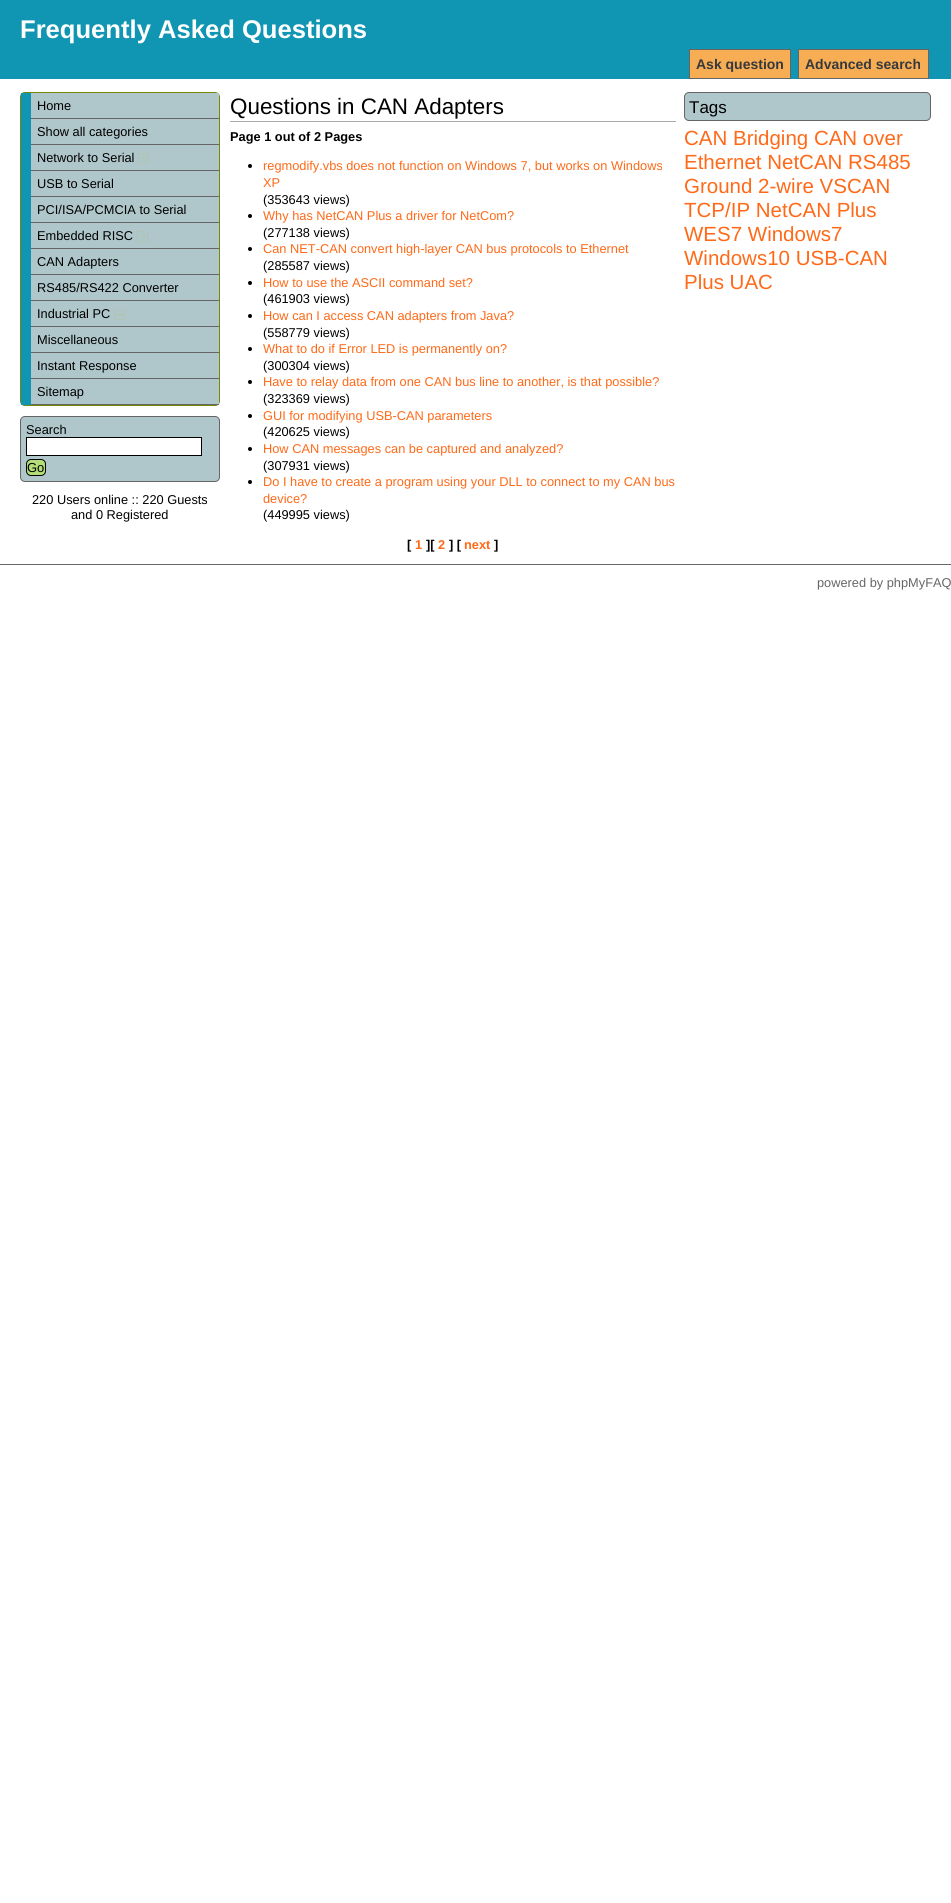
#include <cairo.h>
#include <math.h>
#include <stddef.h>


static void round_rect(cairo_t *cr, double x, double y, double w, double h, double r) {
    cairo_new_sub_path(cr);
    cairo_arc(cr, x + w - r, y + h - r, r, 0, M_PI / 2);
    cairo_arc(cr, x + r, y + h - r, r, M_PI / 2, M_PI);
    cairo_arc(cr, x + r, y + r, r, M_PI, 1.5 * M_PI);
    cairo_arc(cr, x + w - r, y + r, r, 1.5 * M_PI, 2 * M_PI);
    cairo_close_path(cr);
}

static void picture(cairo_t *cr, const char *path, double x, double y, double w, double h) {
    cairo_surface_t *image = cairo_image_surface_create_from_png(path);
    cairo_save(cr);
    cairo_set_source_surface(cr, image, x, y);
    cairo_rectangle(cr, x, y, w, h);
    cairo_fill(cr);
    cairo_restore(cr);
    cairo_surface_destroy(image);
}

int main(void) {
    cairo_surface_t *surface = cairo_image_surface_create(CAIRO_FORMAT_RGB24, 951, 1903);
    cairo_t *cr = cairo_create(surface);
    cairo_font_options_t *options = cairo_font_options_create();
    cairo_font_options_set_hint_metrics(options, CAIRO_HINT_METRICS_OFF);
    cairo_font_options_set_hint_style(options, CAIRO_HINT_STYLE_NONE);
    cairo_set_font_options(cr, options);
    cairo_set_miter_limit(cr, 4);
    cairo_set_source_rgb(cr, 1, 1, 1);
    cairo_paint(cr);
    cairo_set_source_rgb(cr, 0.063, 0.588, 0.702);
    cairo_rectangle(cr, 0, 0, 951, 79);
    cairo_fill(cr);
    cairo_select_font_face(cr, "Liberation Sans", CAIRO_FONT_SLANT_NORMAL, CAIRO_FONT_WEIGHT_BOLD);
    cairo_set_font_size(cr, 25.6);
    cairo_set_source_rgb(cr, 1, 1, 1);
    cairo_move_to(cr, 20, 38);
    cairo_show_text(cr, "Frequently Asked Questions");
    cairo_set_source_rgb(cr, 0.965, 0.678, 0.325);
    cairo_rectangle(cr, 689.5, 49.5, 101, 29);
    cairo_fill_preserve(cr);
    cairo_set_source_rgb(cr, 0.396, 0.396, 0.396);
    cairo_set_line_width(cr, 1);
    cairo_stroke(cr);
    cairo_set_font_size(cr, 14);
    cairo_set_source_rgb(cr, 0.212, 0.224, 0.239);
    cairo_move_to(cr, 696, 69);
    cairo_show_text(cr, "Ask question");
    cairo_set_source_rgb(cr, 0.965, 0.678, 0.325);
    cairo_rectangle(cr, 798.5, 49.5, 130, 29);
    cairo_fill_preserve(cr);
    cairo_set_source_rgb(cr, 0.396, 0.396, 0.396);
    cairo_stroke(cr);
    cairo_set_source_rgb(cr, 0.212, 0.224, 0.239);
    cairo_move_to(cr, 805, 69);
    cairo_show_text(cr, "Advanced search");
    round_rect(cr, 20.5, 92.5, 199, 313, 4.5);
    cairo_set_source_rgb(cr, 0.451, 0.533, 0.039);
    cairo_stroke(cr);
    cairo_set_source_rgb(cr, 0.063, 0.588, 0.702);
    cairo_rectangle(cr, 21, 93, 10, 312);
    cairo_fill(cr);
    cairo_set_source_rgb(cr, 0.686, 0.776, 0.792);
    cairo_rectangle(cr, 31, 93, 188, 25);
    cairo_fill(cr);
    cairo_set_source_rgb(cr, 0.396, 0.396, 0.396);
    cairo_rectangle(cr, 31, 118, 188, 1);
    cairo_fill(cr);
    cairo_select_font_face(cr, "Liberation Sans", CAIRO_FONT_SLANT_NORMAL, CAIRO_FONT_WEIGHT_NORMAL);
    cairo_set_font_size(cr, 12.8);
    cairo_set_source_rgb(cr, 0, 0, 0);
    cairo_move_to(cr, 37, 110);
    cairo_show_text(cr, "Home");
    cairo_set_source_rgb(cr, 0.686, 0.776, 0.792);
    cairo_rectangle(cr, 31, 119, 188, 25);
    cairo_fill(cr);
    cairo_set_source_rgb(cr, 0.396, 0.396, 0.396);
    cairo_rectangle(cr, 31, 144, 188, 1);
    cairo_fill(cr);
    cairo_set_source_rgb(cr, 0, 0, 0);
    cairo_move_to(cr, 37, 136);
    cairo_show_text(cr, "Show all categories");
    cairo_set_source_rgb(cr, 0.686, 0.776, 0.792);
    cairo_rectangle(cr, 31, 145, 188, 25);
    cairo_fill(cr);
    cairo_set_source_rgb(cr, 0.396, 0.396, 0.396);
    cairo_rectangle(cr, 31, 170, 188, 1);
    cairo_fill(cr);
    cairo_set_source_rgb(cr, 0, 0, 0);
    cairo_move_to(cr, 37, 162);
    cairo_show_text(cr, "Network to Serial");
    picture(cr, "img1.png", 138, 153, 11, 11);
    cairo_set_source_rgb(cr, 0.686, 0.776, 0.792);
    cairo_rectangle(cr, 31, 171, 188, 25);
    cairo_fill(cr);
    cairo_set_source_rgb(cr, 0.396, 0.396, 0.396);
    cairo_rectangle(cr, 31, 196, 188, 1);
    cairo_fill(cr);
    cairo_set_source_rgb(cr, 0, 0, 0);
    cairo_move_to(cr, 37, 188);
    cairo_show_text(cr, "USB to Serial");
    cairo_set_source_rgb(cr, 0.686, 0.776, 0.792);
    cairo_rectangle(cr, 31, 197, 188, 25);
    cairo_fill(cr);
    cairo_set_source_rgb(cr, 0.396, 0.396, 0.396);
    cairo_rectangle(cr, 31, 222, 188, 1);
    cairo_fill(cr);
    cairo_set_source_rgb(cr, 0, 0, 0);
    cairo_move_to(cr, 37, 214);
    cairo_show_text(cr, "PCI/ISA/PCMCIA to Serial");
    cairo_set_source_rgb(cr, 0.686, 0.776, 0.792);
    cairo_rectangle(cr, 31, 223, 188, 25);
    cairo_fill(cr);
    cairo_set_source_rgb(cr, 0.396, 0.396, 0.396);
    cairo_rectangle(cr, 31, 248, 188, 1);
    cairo_fill(cr);
    cairo_set_source_rgb(cr, 0, 0, 0);
    cairo_move_to(cr, 37, 240);
    cairo_show_text(cr, "Embedded RISC");
    picture(cr, "img1.png", 137, 231, 11, 11);
    cairo_set_source_rgb(cr, 0.686, 0.776, 0.792);
    cairo_rectangle(cr, 31, 249, 188, 25);
    cairo_fill(cr);
    cairo_set_source_rgb(cr, 0.396, 0.396, 0.396);
    cairo_rectangle(cr, 31, 274, 188, 1);
    cairo_fill(cr);
    cairo_set_source_rgb(cr, 0, 0, 0);
    cairo_move_to(cr, 37, 266);
    cairo_show_text(cr, "CAN Adapters");
    cairo_set_source_rgb(cr, 0.686, 0.776, 0.792);
    cairo_rectangle(cr, 31, 275, 188, 25);
    cairo_fill(cr);
    cairo_set_source_rgb(cr, 0.396, 0.396, 0.396);
    cairo_rectangle(cr, 31, 300, 188, 1);
    cairo_fill(cr);
    cairo_set_source_rgb(cr, 0, 0, 0);
    cairo_move_to(cr, 37, 292);
    cairo_show_text(cr, "RS485/RS422 Converter");
    cairo_set_source_rgb(cr, 0.686, 0.776, 0.792);
    cairo_rectangle(cr, 31, 301, 188, 25);
    cairo_fill(cr);
    cairo_set_source_rgb(cr, 0.396, 0.396, 0.396);
    cairo_rectangle(cr, 31, 326, 188, 1);
    cairo_fill(cr);
    cairo_set_source_rgb(cr, 0, 0, 0);
    cairo_move_to(cr, 37, 318);
    cairo_show_text(cr, "Industrial PC");
    picture(cr, "img1.png", 114, 309, 11, 11);
    cairo_set_source_rgb(cr, 0.686, 0.776, 0.792);
    cairo_rectangle(cr, 31, 327, 188, 25);
    cairo_fill(cr);
    cairo_set_source_rgb(cr, 0.396, 0.396, 0.396);
    cairo_rectangle(cr, 31, 352, 188, 1);
    cairo_fill(cr);
    cairo_set_source_rgb(cr, 0, 0, 0);
    cairo_move_to(cr, 37, 344);
    cairo_show_text(cr, "Miscellaneous");
    cairo_set_source_rgb(cr, 0.686, 0.776, 0.792);
    cairo_rectangle(cr, 31, 353, 188, 25);
    cairo_fill(cr);
    cairo_set_source_rgb(cr, 0.396, 0.396, 0.396);
    cairo_rectangle(cr, 31, 378, 188, 1);
    cairo_fill(cr);
    cairo_set_source_rgb(cr, 0, 0, 0);
    cairo_move_to(cr, 37, 370);
    cairo_show_text(cr, "Instant Response");
    cairo_set_source_rgb(cr, 0.686, 0.776, 0.792);
    cairo_rectangle(cr, 31, 379, 188, 25);
    cairo_fill(cr);
    cairo_set_source_rgb(cr, 0.396, 0.396, 0.396);
    cairo_rectangle(cr, 31, 404, 188, 1);
    cairo_fill(cr);
    cairo_set_source_rgb(cr, 0, 0, 0);
    cairo_move_to(cr, 37, 396);
    cairo_show_text(cr, "Sitemap");
    cairo_set_source_rgb(cr, 0.686, 0.776, 0.792);
    round_rect(cr, 20.5, 416.5, 199, 65, 4.5);
    cairo_fill_preserve(cr);
    cairo_set_source_rgb(cr, 0.396, 0.396, 0.396);
    cairo_stroke(cr);
    cairo_set_source_rgb(cr, 0, 0, 0);
    cairo_move_to(cr, 26, 434);
    cairo_show_text(cr, "Search");
    cairo_set_source_rgb(cr, 1, 1, 1);
    cairo_rectangle(cr, 26.5, 437.5, 175, 18);
    cairo_fill_preserve(cr);
    cairo_set_source_rgb(cr, 0, 0, 0);
    cairo_stroke(cr);
    cairo_set_source_rgb(cr, 0.702, 0.871, 0.467);
    round_rect(cr, 26.5, 459.5, 19, 16, 4.5);
    cairo_fill_preserve(cr);
    cairo_set_source_rgb(cr, 0, 0, 0);
    cairo_stroke(cr);
    cairo_set_font_size(cr, 13);
    cairo_move_to(cr, 27, 472);
    cairo_show_text(cr, "Go");
    cairo_set_font_size(cr, 12.8);
    cairo_move_to(cr, 32, 504);
    cairo_show_text(cr, "220 Users online :: 220 Guests");
    cairo_move_to(cr, 71, 519);
    cairo_show_text(cr, "and 0 Registered");
    cairo_set_source_rgb(cr, 0.663, 0.663, 0.663);
    cairo_rectangle(cr, 230, 121, 446, 1);
    cairo_fill(cr);
    cairo_set_font_size(cr, 22.4);
    cairo_set_source_rgb(cr, 0, 0, 0);
    cairo_move_to(cr, 230, 114);
    cairo_show_text(cr, "Questions in CAN Adapters");
    cairo_select_font_face(cr, "Liberation Sans", CAIRO_FONT_SLANT_NORMAL, CAIRO_FONT_WEIGHT_BOLD);
    cairo_set_font_size(cr, 12.8);
    cairo_move_to(cr, 230, 141);
    cairo_show_text(cr, "Page 1 out of 2 Pages");
    cairo_new_path(cr);
    cairo_arc(cr, 250, 166, 2, 0, 2 * M_PI);
    cairo_fill(cr);
    cairo_select_font_face(cr, "Liberation Sans", CAIRO_FONT_SLANT_NORMAL, CAIRO_FONT_WEIGHT_NORMAL);
    cairo_set_source_rgb(cr, 1, 0.412, 0.09);
    cairo_move_to(cr, 263, 170);
    cairo_show_text(cr, "regmodify.vbs does not function on Windows 7, but works on Windows");
    cairo_move_to(cr, 263, 187);
    cairo_show_text(cr, "XP");
    cairo_set_source_rgb(cr, 0, 0, 0);
    cairo_move_to(cr, 263, 204);
    cairo_show_text(cr, "(353643 views)");
    cairo_new_path(cr);
    cairo_arc(cr, 250, 216, 2, 0, 2 * M_PI);
    cairo_fill(cr);
    cairo_set_source_rgb(cr, 1, 0.412, 0.09);
    cairo_move_to(cr, 263, 220);
    cairo_show_text(cr, "Why has NetCAN Plus a driver for NetCom?");
    cairo_set_source_rgb(cr, 0, 0, 0);
    cairo_move_to(cr, 263, 237);
    cairo_show_text(cr, "(277138 views)");
    cairo_new_path(cr);
    cairo_arc(cr, 250, 249, 2, 0, 2 * M_PI);
    cairo_fill(cr);
    cairo_set_source_rgb(cr, 1, 0.412, 0.09);
    cairo_move_to(cr, 263, 253);
    cairo_show_text(cr, "Can NET-CAN convert high-layer CAN bus protocols to Ethernet");
    cairo_set_source_rgb(cr, 0, 0, 0);
    cairo_move_to(cr, 263, 270);
    cairo_show_text(cr, "(285587 views)");
    cairo_new_path(cr);
    cairo_arc(cr, 250, 283, 2, 0, 2 * M_PI);
    cairo_fill(cr);
    cairo_set_source_rgb(cr, 1, 0.412, 0.09);
    cairo_move_to(cr, 263, 287);
    cairo_show_text(cr, "How to use the ASCII command set?");
    cairo_set_source_rgb(cr, 0, 0, 0);
    cairo_move_to(cr, 263, 303);
    cairo_show_text(cr, "(461903 views)");
    cairo_new_path(cr);
    cairo_arc(cr, 250, 316, 2, 0, 2 * M_PI);
    cairo_fill(cr);
    cairo_set_source_rgb(cr, 1, 0.412, 0.09);
    cairo_move_to(cr, 263, 320);
    cairo_show_text(cr, "How can I access CAN adapters from Java?");
    cairo_set_source_rgb(cr, 0, 0, 0);
    cairo_move_to(cr, 263, 337);
    cairo_show_text(cr, "(558779 views)");
    cairo_new_path(cr);
    cairo_arc(cr, 250, 349, 2, 0, 2 * M_PI);
    cairo_fill(cr);
    cairo_set_source_rgb(cr, 1, 0.412, 0.09);
    cairo_move_to(cr, 263, 353);
    cairo_show_text(cr, "What to do if Error LED is permanently on?");
    cairo_set_source_rgb(cr, 0, 0, 0);
    cairo_move_to(cr, 263, 370);
    cairo_show_text(cr, "(300304 views)");
    cairo_new_path(cr);
    cairo_arc(cr, 250, 382, 2, 0, 2 * M_PI);
    cairo_fill(cr);
    cairo_set_source_rgb(cr, 1, 0.412, 0.09);
    cairo_move_to(cr, 263, 386);
    cairo_show_text(cr, "Have to relay data from one CAN bus line to another, is that possible?");
    cairo_set_source_rgb(cr, 0, 0, 0);
    cairo_move_to(cr, 263, 403);
    cairo_show_text(cr, "(323369 views)");
    cairo_new_path(cr);
    cairo_arc(cr, 250, 416, 2, 0, 2 * M_PI);
    cairo_fill(cr);
    cairo_set_source_rgb(cr, 1, 0.412, 0.09);
    cairo_move_to(cr, 263, 420);
    cairo_show_text(cr, "GUI for modifying USB-CAN parameters");
    cairo_set_source_rgb(cr, 0, 0, 0);
    cairo_move_to(cr, 263, 436);
    cairo_show_text(cr, "(420625 views)");
    cairo_new_path(cr);
    cairo_arc(cr, 250, 449, 2, 0, 2 * M_PI);
    cairo_fill(cr);
    cairo_set_source_rgb(cr, 1, 0.412, 0.09);
    cairo_move_to(cr, 263, 453);
    cairo_show_text(cr, "How CAN messages can be captured and analyzed?");
    cairo_set_source_rgb(cr, 0, 0, 0);
    cairo_move_to(cr, 263, 470);
    cairo_show_text(cr, "(307931 views)");
    cairo_new_path(cr);
    cairo_arc(cr, 250, 482, 2, 0, 2 * M_PI);
    cairo_fill(cr);
    cairo_set_source_rgb(cr, 1, 0.412, 0.09);
    cairo_move_to(cr, 263, 486);
    cairo_show_text(cr, "Do I have to create a program using your DLL to connect to my CAN bus");
    cairo_move_to(cr, 263, 503);
    cairo_show_text(cr, "device?");
    cairo_set_source_rgb(cr, 0, 0, 0);
    cairo_move_to(cr, 263, 519);
    cairo_show_text(cr, "(449995 views)");
    cairo_select_font_face(cr, "Liberation Sans", CAIRO_FONT_SLANT_NORMAL, CAIRO_FONT_WEIGHT_BOLD);
    cairo_move_to(cr, 407, 549);
    cairo_show_text(cr, "[");
    cairo_set_source_rgb(cr, 1, 0.412, 0.09);
    cairo_move_to(cr, 415, 549);
    cairo_show_text(cr, "1");
    cairo_set_source_rgb(cr, 0, 0, 0);
    cairo_move_to(cr, 426, 549);
    cairo_show_text(cr, "][");
    cairo_set_source_rgb(cr, 1, 0.412, 0.09);
    cairo_move_to(cr, 438, 549);
    cairo_show_text(cr, "2");
    cairo_set_source_rgb(cr, 0, 0, 0);
    cairo_move_to(cr, 449, 549);
    cairo_show_text(cr, "] [");
    cairo_set_source_rgb(cr, 1, 0.412, 0.09);
    cairo_move_to(cr, 464, 549);
    cairo_show_text(cr, "next");
    cairo_set_source_rgb(cr, 0, 0, 0);
    cairo_move_to(cr, 494, 549);
    cairo_show_text(cr, "]");
    cairo_set_source_rgb(cr, 0.686, 0.776, 0.792);
    round_rect(cr, 684.5, 92.5, 246, 28, 4.5);
    cairo_fill_preserve(cr);
    cairo_set_source_rgb(cr, 0.396, 0.396, 0.396);
    cairo_stroke(cr);
    cairo_select_font_face(cr, "Liberation Sans", CAIRO_FONT_SLANT_NORMAL, CAIRO_FONT_WEIGHT_NORMAL);
    cairo_set_font_size(cr, 17);
    cairo_set_source_rgb(cr, 0, 0, 0);
    cairo_move_to(cr, 689, 113);
    cairo_show_text(cr, "Tags");
    cairo_set_font_size(cr, 20.5);
    cairo_set_source_rgb(cr, 1, 0.412, 0.09);
    cairo_move_to(cr, 684, 145);
    cairo_show_text(cr, "CAN Bridging CAN over");
    cairo_move_to(cr, 684, 169);
    cairo_show_text(cr, "Ethernet NetCAN RS485");
    cairo_move_to(cr, 684, 193);
    cairo_show_text(cr, "Ground 2-wire VSCAN");
    cairo_move_to(cr, 684, 217);
    cairo_show_text(cr, "TCP/IP NetCAN Plus");
    cairo_move_to(cr, 684, 241);
    cairo_show_text(cr, "WES7 Windows7");
    cairo_move_to(cr, 684, 265);
    cairo_show_text(cr, "Windows10 USB-CAN");
    cairo_move_to(cr, 684, 289);
    cairo_show_text(cr, "Plus UAC");
    cairo_set_source_rgb(cr, 0.4, 0.4, 0.4);
    cairo_rectangle(cr, 0, 564, 951, 1);
    cairo_fill(cr);
    cairo_set_font_size(cr, 12.8);
    cairo_move_to(cr, 817, 587);
    cairo_show_text(cr, "powered by phpMyFAQ");
    cairo_surface_write_to_png(surface, "page.png");
    cairo_font_options_destroy(options);
    cairo_destroy(cr);
    cairo_surface_destroy(surface);
    return 0;
}
